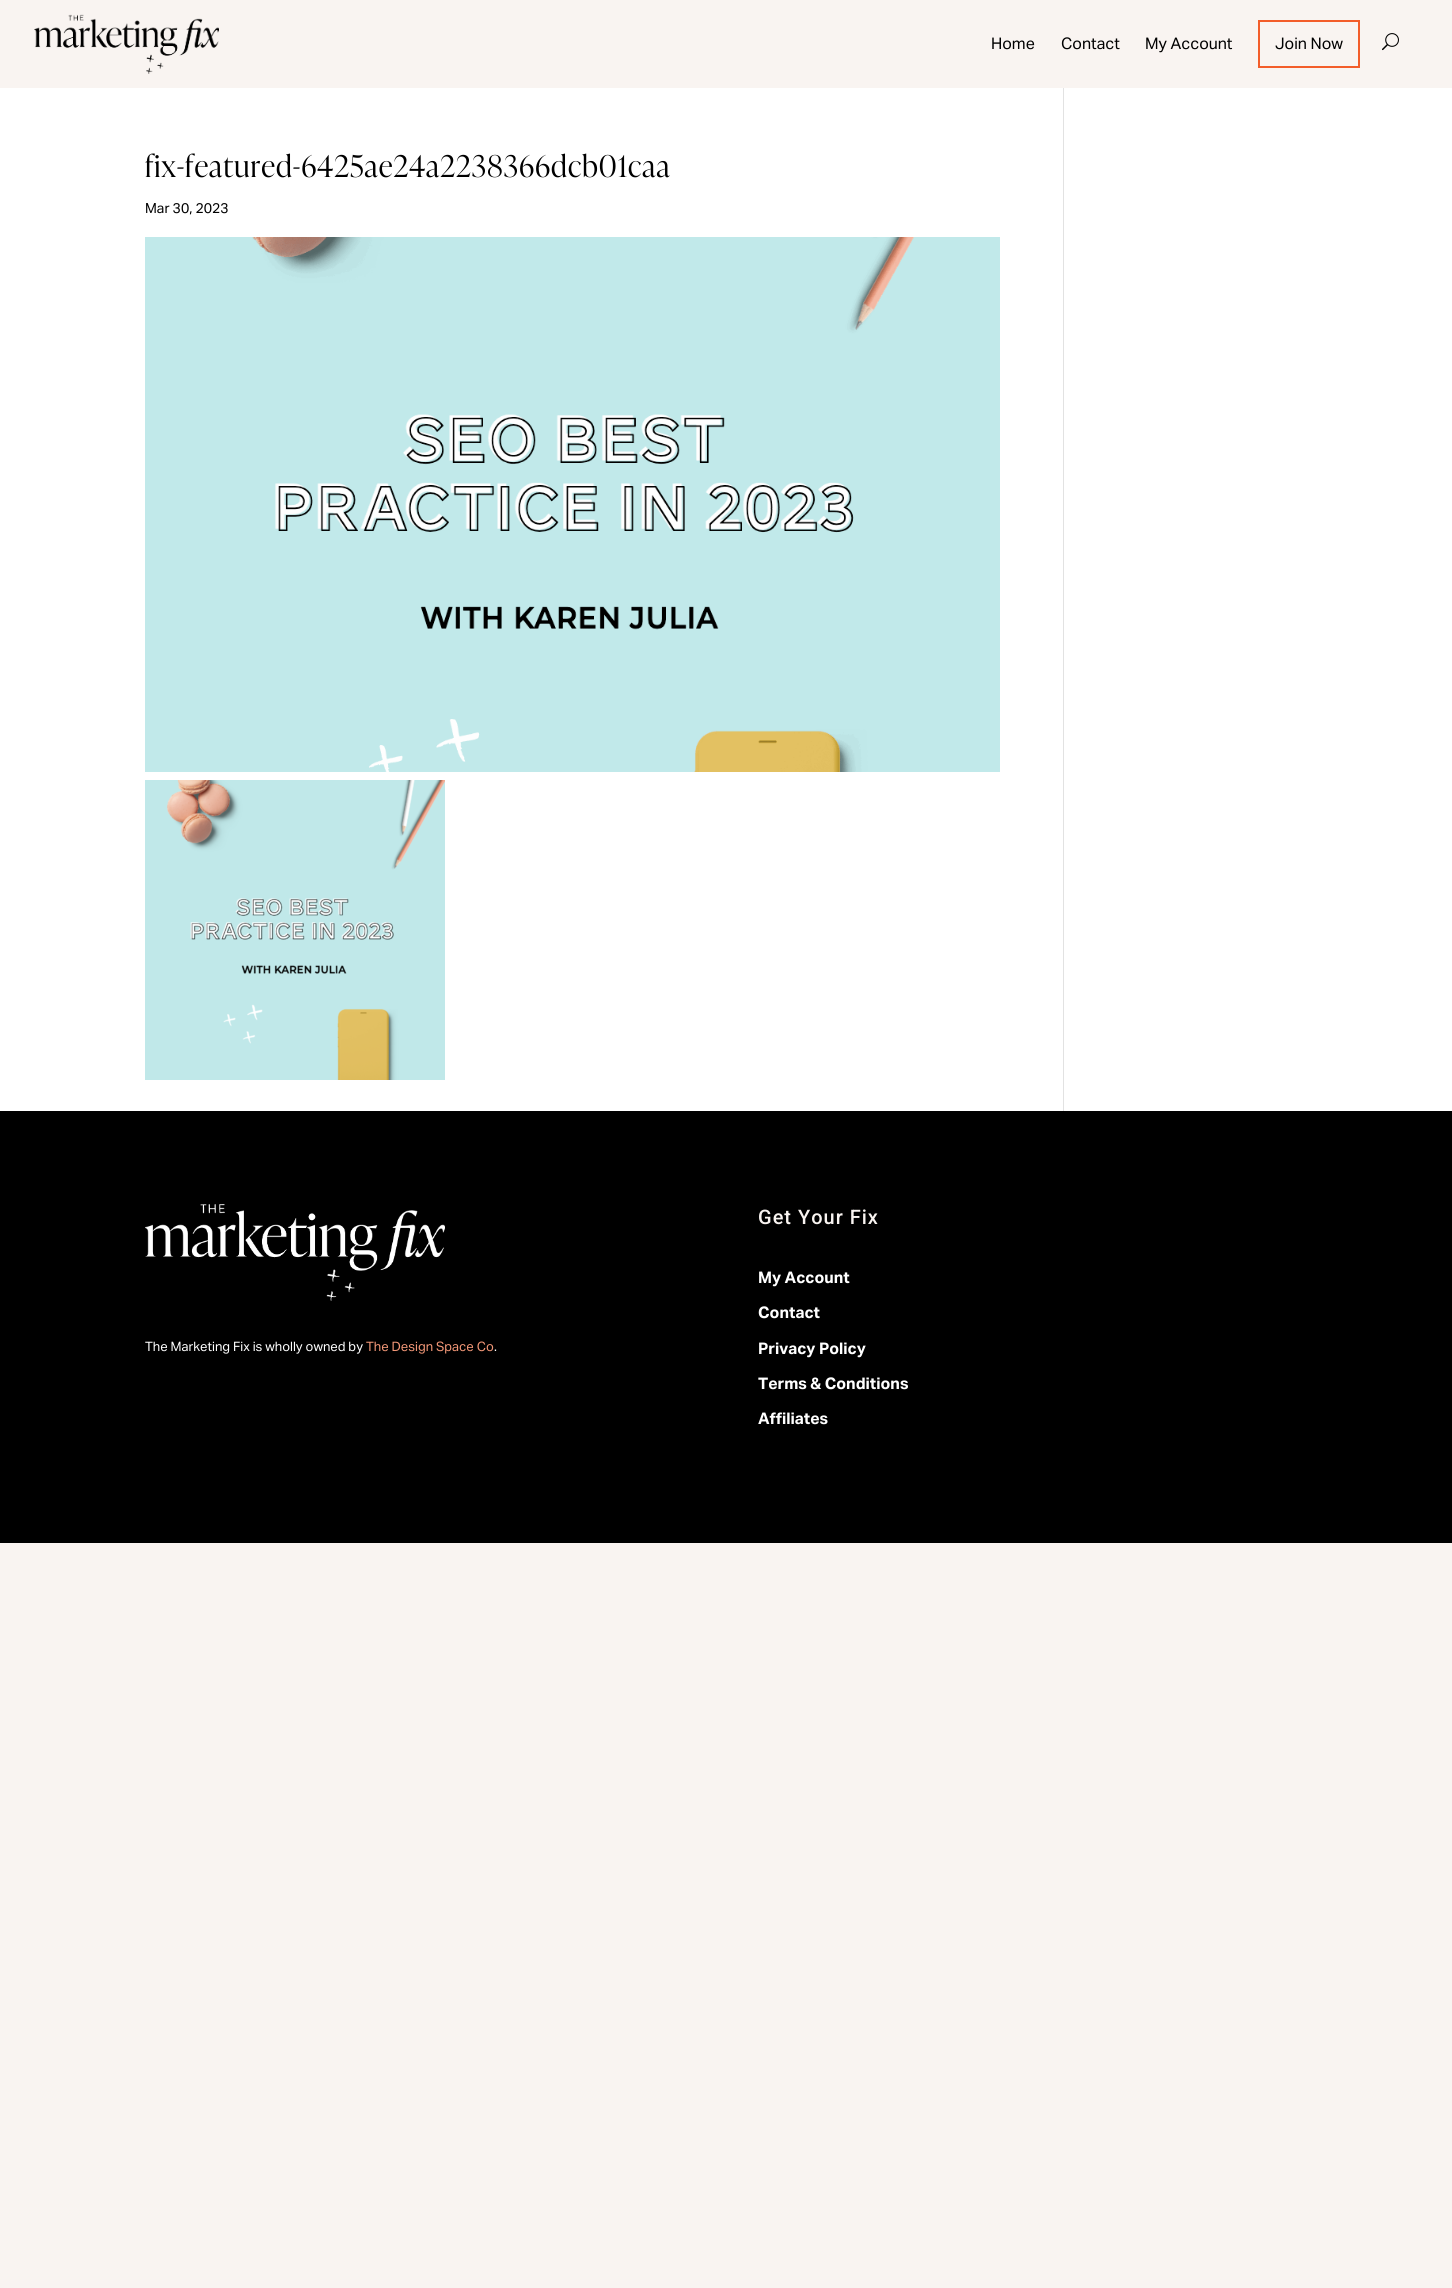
#include <cairo.h>
#include <math.h>
#include <stddef.h>


static void spaced_text(cairo_t *cr, double x, double y, const char *s, double letter, double word) {
    cairo_move_to(cr, x, y);
    while (*s) {
        char ch[5] = {0};
        int n = 0;
        do ch[n++] = *s++; while ((*s & 0xC0) == 0x80);
        cairo_show_text(cr, ch);
        cairo_rel_move_to(cr, letter + word * (*ch == ' '), 0);
    }
}

static void picture(cairo_t *cr, const char *path, double x, double y, double w, double h) {
    cairo_surface_t *image = cairo_image_surface_create_from_png(path);
    cairo_save(cr);
    cairo_set_source_surface(cr, image, x, y);
    cairo_rectangle(cr, x, y, w, h);
    cairo_fill(cr);
    cairo_restore(cr);
    cairo_surface_destroy(image);
}

int main(void) {
    cairo_surface_t *surface = cairo_image_surface_create(CAIRO_FORMAT_RGB24, 1452, 2288);
    cairo_t *cr = cairo_create(surface);
    cairo_font_options_t *options = cairo_font_options_create();
    cairo_font_options_set_hint_metrics(options, CAIRO_HINT_METRICS_OFF);
    cairo_font_options_set_hint_style(options, CAIRO_HINT_STYLE_NONE);
    cairo_set_font_options(cr, options);
    cairo_set_miter_limit(cr, 4);
    cairo_set_source_rgb(cr, 0.976, 0.957, 0.945);
    cairo_paint(cr);
    picture(cr, "img1.png", 34, 14, 185, 60);
    cairo_select_font_face(cr, "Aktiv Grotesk", CAIRO_FONT_SLANT_NORMAL, CAIRO_FONT_WEIGHT_NORMAL);
    cairo_set_font_size(cr, 16);
    cairo_set_source_rgb(cr, 0, 0, 0);
    cairo_move_to(cr, 991, 49);
    cairo_show_text(cr, "Home");
    cairo_move_to(cr, 1061, 49);
    cairo_show_text(cr, "Contact");
    cairo_move_to(cr, 1145, 49);
    cairo_show_text(cr, "My Account");
    cairo_rectangle(cr, 1259, 21, 100, 46);
    cairo_set_source_rgb(cr, 0.953, 0.365, 0.165);
    cairo_stroke(cr);
    cairo_set_source_rgb(cr, 0, 0, 0);
    cairo_move_to(cr, 1275, 49);
    cairo_show_text(cr, "Join Now");
    picture(cr, "img2.png", 1382, 33, 17, 18);
    cairo_set_source_rgb(cr, 1, 1, 1);
    cairo_rectangle(cr, 0, 88, 1452, 1023);
    cairo_fill(cr);
    cairo_select_font_face(cr, "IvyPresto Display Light", CAIRO_FONT_SLANT_NORMAL, CAIRO_FONT_WEIGHT_NORMAL);
    cairo_set_font_size(cr, 30);
    cairo_set_source_rgb(cr, 0, 0, 0);
    spaced_text(cr, 145, 177, "fix-featured-6425ae24a2238366dcb01caa", 1, 0);
    cairo_select_font_face(cr, "Aktiv Grotesk", CAIRO_FONT_SLANT_NORMAL, CAIRO_FONT_WEIGHT_NORMAL);
    cairo_set_font_size(cr, 14);
    cairo_move_to(cr, 145, 213);
    cairo_show_text(cr, "Mar 30, 2023");
    picture(cr, "img3.png", 145, 237, 855, 535);
    picture(cr, "img4.png", 145, 780, 300, 300);
    cairo_set_source_rgb(cr, 0.886, 0.886, 0.886);
    cairo_rectangle(cr, 1063, 88, 1, 1023);
    cairo_fill(cr);
    cairo_set_source_rgb(cr, 0, 0, 0);
    cairo_rectangle(cr, 0, 1111, 1452, 432);
    cairo_fill(cr);
    picture(cr, "img5.png", 145, 1204, 300, 97);
    cairo_set_font_size(cr, 13);
    cairo_set_source_rgb(cr, 1, 1, 1);
    cairo_move_to(cr, 145, 1351);
    cairo_show_text(cr, "The Marketing Fix is wholly owned by");
    cairo_set_source_rgb(cr, 0.949, 0.592, 0.467);
    cairo_move_to(cr, 366, 1351);
    cairo_show_text(cr, "The Design Space Co");
    cairo_set_source_rgb(cr, 1, 1, 1);
    cairo_move_to(cr, 494, 1351);
    cairo_show_text(cr, ".");
    cairo_select_font_face(cr, "Roboto Medium", CAIRO_FONT_SLANT_NORMAL, CAIRO_FONT_WEIGHT_NORMAL);
    cairo_set_font_size(cr, 20);
    cairo_set_source_rgb(cr, 0.976, 0.957, 0.945);
    spaced_text(cr, 758, 1224, "Get Your Fix", 1, 0);
    cairo_select_font_face(cr, "Aktiv Grotesk", CAIRO_FONT_SLANT_NORMAL, CAIRO_FONT_WEIGHT_BOLD);
    cairo_set_font_size(cr, 16);
    cairo_set_source_rgb(cr, 1, 1, 1);
    cairo_move_to(cr, 758, 1283);
    cairo_show_text(cr, "My Account");
    cairo_move_to(cr, 758, 1318);
    cairo_show_text(cr, "Contact");
    cairo_move_to(cr, 758, 1354);
    cairo_show_text(cr, "Privacy Policy");
    cairo_move_to(cr, 758, 1389);
    cairo_show_text(cr, "Terms & Conditions");
    cairo_move_to(cr, 758, 1424);
    cairo_show_text(cr, "Affiliates");
    cairo_surface_write_to_png(surface, "page.png");
    cairo_font_options_destroy(options);
    cairo_destroy(cr);
    cairo_surface_destroy(surface);
    return 0;
}
